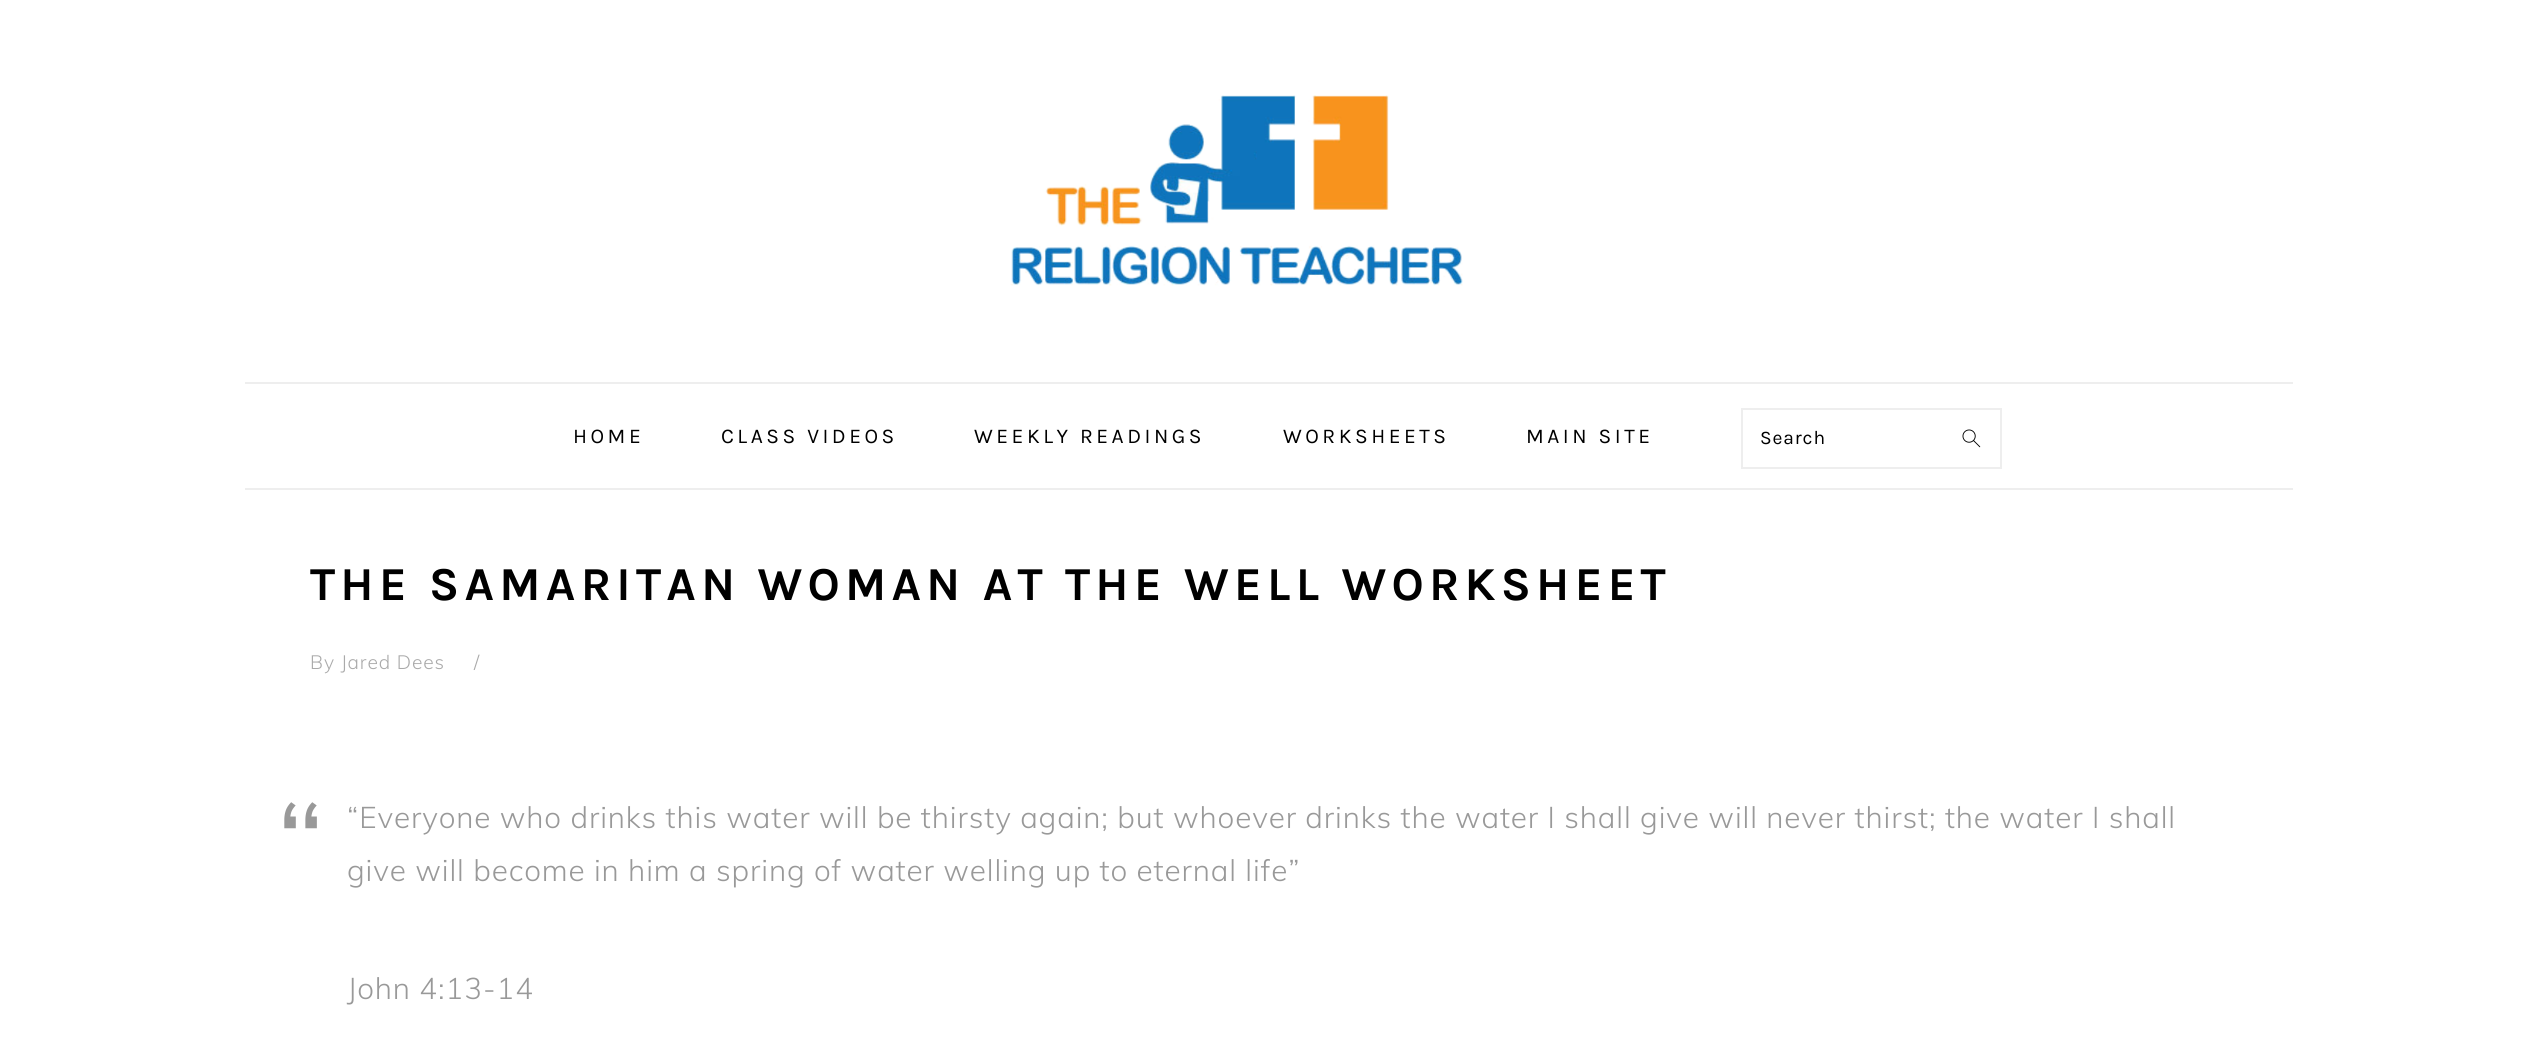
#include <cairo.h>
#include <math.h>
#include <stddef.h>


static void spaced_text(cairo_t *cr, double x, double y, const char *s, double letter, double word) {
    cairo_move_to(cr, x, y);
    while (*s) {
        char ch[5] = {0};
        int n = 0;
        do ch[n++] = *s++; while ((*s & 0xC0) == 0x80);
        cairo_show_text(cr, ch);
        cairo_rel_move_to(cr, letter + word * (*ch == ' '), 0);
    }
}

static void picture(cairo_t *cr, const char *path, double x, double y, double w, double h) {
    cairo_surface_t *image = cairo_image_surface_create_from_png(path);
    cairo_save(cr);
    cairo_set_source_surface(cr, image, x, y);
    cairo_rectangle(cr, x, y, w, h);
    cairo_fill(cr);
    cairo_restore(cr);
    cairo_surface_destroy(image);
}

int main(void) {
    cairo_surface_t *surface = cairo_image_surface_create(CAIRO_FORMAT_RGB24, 2536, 1062);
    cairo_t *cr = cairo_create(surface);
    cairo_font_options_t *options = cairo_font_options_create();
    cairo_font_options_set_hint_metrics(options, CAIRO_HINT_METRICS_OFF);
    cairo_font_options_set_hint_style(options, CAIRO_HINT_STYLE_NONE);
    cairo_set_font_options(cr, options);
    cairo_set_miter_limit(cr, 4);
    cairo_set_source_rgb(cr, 1, 1, 1);
    cairo_paint(cr);
    picture(cr, "img1.png", 1010, 95, 453, 191);
    cairo_set_source_rgb(cr, 0.933, 0.933, 0.933);
    cairo_rectangle(cr, 245, 382, 2048, 2);
    cairo_fill(cr);
    cairo_rectangle(cr, 245, 488, 2048, 2);
    cairo_fill(cr);
    cairo_select_font_face(cr, "Karla", CAIRO_FONT_SLANT_NORMAL, CAIRO_FONT_WEIGHT_NORMAL);
    cairo_set_font_size(cr, 21);
    cairo_set_source_rgb(cr, 0, 0, 0);
    spaced_text(cr, 573, 443, "HOME", 3.5, 0);
    spaced_text(cr, 721, 443, "CLASS VIDEOS", 3.5, 0);
    spaced_text(cr, 974, 443, "WEEKLY READINGS", 3.5, 0);
    spaced_text(cr, 1283, 443, "WORKSHEETS", 3.5, 0);
    spaced_text(cr, 1526, 443, "MAIN SITE", 3.5, 0);
    cairo_rectangle(cr, 1742, 409, 259, 59);
    cairo_set_source_rgb(cr, 0.933, 0.933, 0.933);
    cairo_stroke(cr);
    picture(cr, "img2.png", 1962, 429, 19, 19);
    cairo_set_font_size(cr, 19.25);
    cairo_set_source_rgb(cr, 0, 0, 0);
    spaced_text(cr, 1760, 444, "Search", 0.88, 0);
    cairo_select_font_face(cr, "Karla", CAIRO_FONT_SLANT_NORMAL, CAIRO_FONT_WEIGHT_BOLD);
    cairo_set_font_size(cr, 47.25);
    spaced_text(cr, 310, 600, "THE SAMARITAN WOMAN AT THE WELL WORKSHEET", 5.25, 0);
    cairo_select_font_face(cr, "Muli Light", CAIRO_FONT_SLANT_NORMAL, CAIRO_FONT_WEIGHT_NORMAL);
    cairo_set_font_size(cr, 19.25);
    cairo_set_source_rgb(cr, 0.667, 0.667, 0.667);
    spaced_text(cr, 310, 669, "By Jared Dees", 0.88, 0);
    spaced_text(cr, 474, 669, "/", 0.88, 0);
    cairo_set_font_size(cr, 135);
    cairo_set_source_rgb(cr, 0.6, 0.6, 0.6);
    spaced_text(cr, 275, 899, "“", 0.88, 0);
    cairo_set_font_size(cr, 29.75);
    spaced_text(cr, 347, 828, "“Everyone who drinks this water will be thirsty again; but whoever drinks the water I shall give will never thirst; the water I shall", 0.88, 0);
    spaced_text(cr, 347, 881, "give will become in him a spring of water welling up to eternal life”", 0.88, 0);
    spaced_text(cr, 347, 999, "John 4:13-14", 0.88, 0);
    cairo_surface_write_to_png(surface, "page.png");
    cairo_font_options_destroy(options);
    cairo_destroy(cr);
    cairo_surface_destroy(surface);
    return 0;
}
